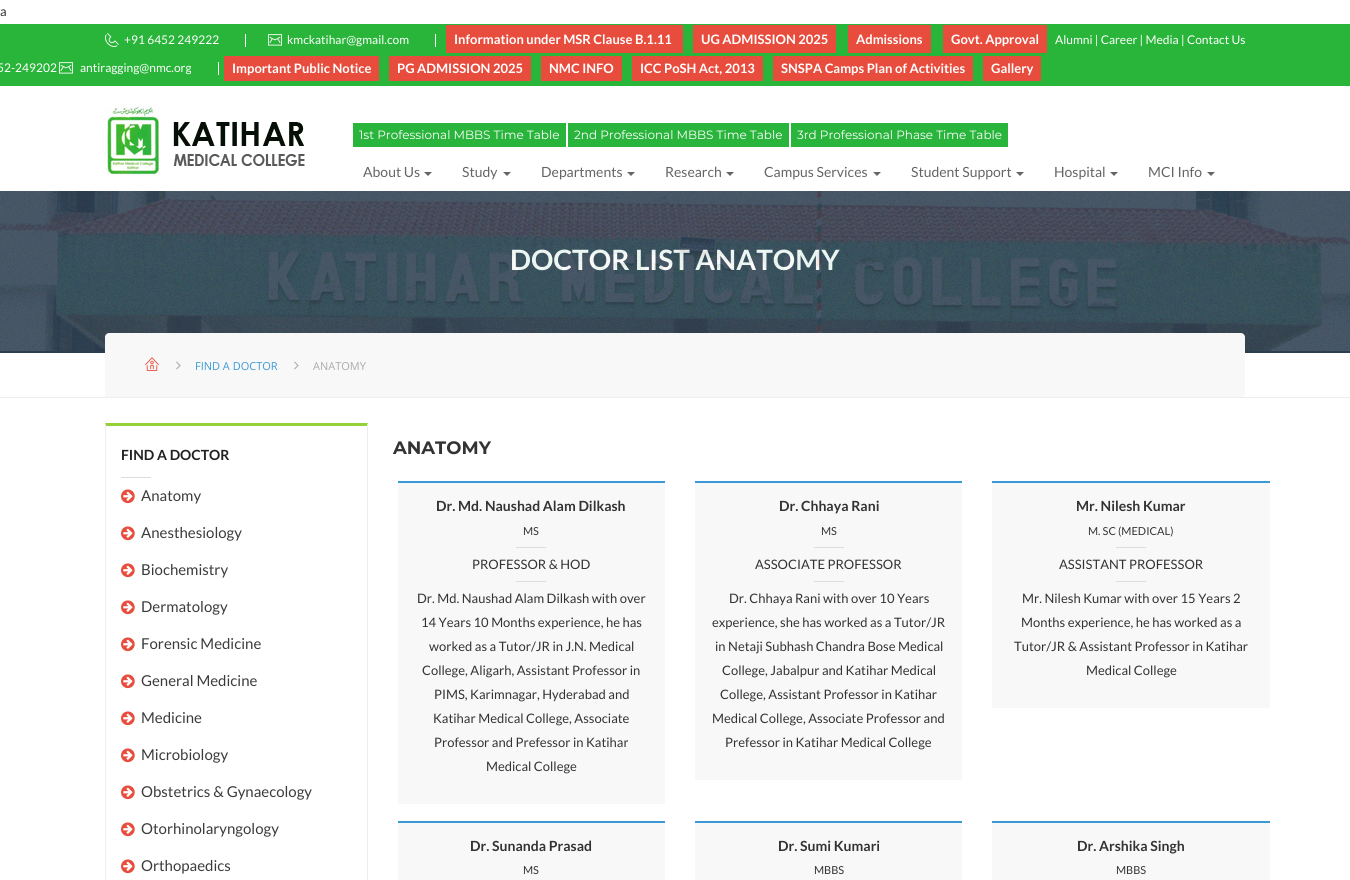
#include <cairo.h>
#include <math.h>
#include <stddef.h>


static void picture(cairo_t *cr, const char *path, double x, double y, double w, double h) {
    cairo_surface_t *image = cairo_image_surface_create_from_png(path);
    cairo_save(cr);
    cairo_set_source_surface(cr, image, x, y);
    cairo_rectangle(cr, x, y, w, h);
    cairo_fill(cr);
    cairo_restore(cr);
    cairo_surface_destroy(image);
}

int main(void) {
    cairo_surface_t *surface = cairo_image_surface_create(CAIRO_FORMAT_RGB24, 1350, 880);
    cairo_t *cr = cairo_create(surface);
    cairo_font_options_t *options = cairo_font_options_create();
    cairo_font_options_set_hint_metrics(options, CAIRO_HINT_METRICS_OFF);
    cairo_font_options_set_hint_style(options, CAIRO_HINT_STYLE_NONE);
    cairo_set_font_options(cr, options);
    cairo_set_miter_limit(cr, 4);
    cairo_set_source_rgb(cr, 1, 1, 1);
    cairo_paint(cr);
    cairo_select_font_face(cr, "Lato", CAIRO_FONT_SLANT_NORMAL, CAIRO_FONT_WEIGHT_NORMAL);
    cairo_set_font_size(cr, 13);
    cairo_set_source_rgb(cr, 0.2, 0.2, 0.2);
    cairo_move_to(cr, 0, 16);
    cairo_show_text(cr, "a");
    cairo_set_source_rgb(cr, 0.161, 0.71, 0.224);
    cairo_rectangle(cr, 0, 24, 1350, 62);
    cairo_fill(cr);
    cairo_set_source_rgb(cr, 1, 1, 1);
    cairo_rectangle(cr, 245, 34, 1, 13);
    cairo_fill(cr);
    picture(cr, "img1.png", 105, 33, 14, 14);
    cairo_set_font_size(cr, 12);
    cairo_move_to(cr, 124, 44);
    cairo_show_text(cr, "+91 6452 249222");
    cairo_rectangle(cr, 435, 34, 1, 13);
    cairo_fill(cr);
    picture(cr, "img2.png", 268, 34, 14, 12);
    cairo_move_to(cr, 287, 44);
    cairo_show_text(cr, "kmckatihar@gmail.com");
    cairo_set_source_rgb(cr, 0.91, 0.298, 0.239);
    cairo_rectangle(cr, 446, 25, 237, 28);
    cairo_fill(cr);
    cairo_select_font_face(cr, "Lato", CAIRO_FONT_SLANT_NORMAL, CAIRO_FONT_WEIGHT_BOLD);
    cairo_set_font_size(cr, 13);
    cairo_set_source_rgb(cr, 1, 1, 1);
    cairo_move_to(cr, 454, 44);
    cairo_show_text(cr, "Information under MSR Clause B.1.11");
    cairo_set_source_rgb(cr, 0.91, 0.298, 0.239);
    cairo_rectangle(cr, 693, 25, 143, 28);
    cairo_fill(cr);
    cairo_set_source_rgb(cr, 1, 1, 1);
    cairo_move_to(cr, 701, 44);
    cairo_show_text(cr, "UG ADMISSION 2025");
    cairo_set_source_rgb(cr, 0.91, 0.298, 0.239);
    cairo_rectangle(cr, 848, 25, 83, 28);
    cairo_fill(cr);
    cairo_set_source_rgb(cr, 1, 1, 1);
    cairo_move_to(cr, 856, 44);
    cairo_show_text(cr, "Admissions");
    cairo_set_source_rgb(cr, 0.91, 0.298, 0.239);
    cairo_rectangle(cr, 943, 25, 104, 28);
    cairo_fill(cr);
    cairo_set_source_rgb(cr, 1, 1, 1);
    cairo_move_to(cr, 951, 44);
    cairo_show_text(cr, "Govt. Approval");
    cairo_select_font_face(cr, "Lato", CAIRO_FONT_SLANT_NORMAL, CAIRO_FONT_WEIGHT_NORMAL);
    cairo_set_font_size(cr, 12);
    cairo_move_to(cr, 1055, 44);
    cairo_show_text(cr, "Alumni | Career | Media | Contact Us");
    cairo_rectangle(cr, 218, 62, 1, 13);
    cairo_fill(cr);
    cairo_move_to(cr, -3, 72);
    cairo_show_text(cr, "52-249202");
    picture(cr, "img2.png", 59, 62, 14, 12);
    cairo_move_to(cr, 80, 72);
    cairo_show_text(cr, "antiragging@nmc.org");
    cairo_set_source_rgb(cr, 0.91, 0.298, 0.239);
    cairo_rectangle(cr, 224, 56, 155, 25);
    cairo_fill(cr);
    cairo_select_font_face(cr, "Lato", CAIRO_FONT_SLANT_NORMAL, CAIRO_FONT_WEIGHT_BOLD);
    cairo_set_font_size(cr, 13);
    cairo_set_source_rgb(cr, 1, 1, 1);
    cairo_move_to(cr, 232, 73);
    cairo_show_text(cr, "Important Public Notice");
    cairo_set_source_rgb(cr, 0.91, 0.298, 0.239);
    cairo_rectangle(cr, 389, 56, 142, 25);
    cairo_fill(cr);
    cairo_set_source_rgb(cr, 1, 1, 1);
    cairo_move_to(cr, 397, 73);
    cairo_show_text(cr, "PG ADMISSION 2025");
    cairo_set_source_rgb(cr, 0.91, 0.298, 0.239);
    cairo_rectangle(cr, 541, 56, 81, 25);
    cairo_fill(cr);
    cairo_set_source_rgb(cr, 1, 1, 1);
    cairo_move_to(cr, 549, 73);
    cairo_show_text(cr, "NMC INFO");
    cairo_set_source_rgb(cr, 0.91, 0.298, 0.239);
    cairo_rectangle(cr, 632, 56, 131, 25);
    cairo_fill(cr);
    cairo_set_source_rgb(cr, 1, 1, 1);
    cairo_move_to(cr, 640, 73);
    cairo_show_text(cr, "ICC PoSH Act, 2013");
    cairo_set_source_rgb(cr, 0.91, 0.298, 0.239);
    cairo_rectangle(cr, 773, 56, 200, 25);
    cairo_fill(cr);
    cairo_set_source_rgb(cr, 1, 1, 1);
    cairo_move_to(cr, 781, 73);
    cairo_show_text(cr, "SNSPA Camps Plan of Activities");
    cairo_set_source_rgb(cr, 0.91, 0.298, 0.239);
    cairo_rectangle(cr, 983, 56, 58, 25);
    cairo_fill(cr);
    cairo_set_source_rgb(cr, 1, 1, 1);
    cairo_move_to(cr, 991, 73);
    cairo_show_text(cr, "Gallery");
    picture(cr, "img3.png", 105, 106, 200, 69);
    cairo_set_source_rgb(cr, 0.161, 0.71, 0.231);
    cairo_rectangle(cr, 353, 123, 213, 24);
    cairo_fill(cr);
    cairo_select_font_face(cr, "Montserrat", CAIRO_FONT_SLANT_NORMAL, CAIRO_FONT_WEIGHT_NORMAL);
    cairo_set_font_size(cr, 12);
    cairo_set_source_rgb(cr, 1, 1, 1);
    cairo_move_to(cr, 359, 139);
    cairo_show_text(cr, "1st Professional MBBS Time Table");
    cairo_set_source_rgb(cr, 0.161, 0.71, 0.231);
    cairo_rectangle(cr, 568, 123, 221, 24);
    cairo_fill(cr);
    cairo_set_source_rgb(cr, 1, 1, 1);
    cairo_move_to(cr, 574, 139);
    cairo_show_text(cr, "2nd Professional MBBS Time Table");
    cairo_set_source_rgb(cr, 0.161, 0.71, 0.231);
    cairo_rectangle(cr, 791, 123, 217, 24);
    cairo_fill(cr);
    cairo_set_source_rgb(cr, 1, 1, 1);
    cairo_move_to(cr, 797, 139);
    cairo_show_text(cr, "3rd Professional Phase Time Table");
    cairo_select_font_face(cr, "Lato", CAIRO_FONT_SLANT_NORMAL, CAIRO_FONT_WEIGHT_NORMAL);
    cairo_set_font_size(cr, 14);
    cairo_set_source_rgb(cr, 0.396, 0.396, 0.396);
    cairo_move_to(cr, 363, 177);
    cairo_show_text(cr, "About Us");
    cairo_new_path(cr);
    cairo_move_to(cr, 424, 172);
    cairo_line_to(cr, 432, 172);
    cairo_line_to(cr, 428, 176);
    cairo_close_path(cr);
    cairo_fill(cr);
    cairo_move_to(cr, 462, 177);
    cairo_show_text(cr, "Study");
    cairo_new_path(cr);
    cairo_move_to(cr, 503, 172);
    cairo_line_to(cr, 511, 172);
    cairo_line_to(cr, 507, 176);
    cairo_close_path(cr);
    cairo_fill(cr);
    cairo_move_to(cr, 541, 177);
    cairo_show_text(cr, "Departments");
    cairo_new_path(cr);
    cairo_move_to(cr, 627, 172);
    cairo_line_to(cr, 635, 172);
    cairo_line_to(cr, 631, 176);
    cairo_close_path(cr);
    cairo_fill(cr);
    cairo_move_to(cr, 665, 177);
    cairo_show_text(cr, "Research");
    cairo_new_path(cr);
    cairo_move_to(cr, 726, 172);
    cairo_line_to(cr, 734, 172);
    cairo_line_to(cr, 730, 176);
    cairo_close_path(cr);
    cairo_fill(cr);
    cairo_move_to(cr, 764, 177);
    cairo_show_text(cr, "Campus Services");
    cairo_new_path(cr);
    cairo_move_to(cr, 873, 172);
    cairo_line_to(cr, 881, 172);
    cairo_line_to(cr, 877, 176);
    cairo_close_path(cr);
    cairo_fill(cr);
    cairo_move_to(cr, 911, 177);
    cairo_show_text(cr, "Student Support");
    cairo_new_path(cr);
    cairo_move_to(cr, 1016, 172);
    cairo_line_to(cr, 1024, 172);
    cairo_line_to(cr, 1020, 176);
    cairo_close_path(cr);
    cairo_fill(cr);
    cairo_move_to(cr, 1054, 177);
    cairo_show_text(cr, "Hospital");
    cairo_new_path(cr);
    cairo_move_to(cr, 1110, 172);
    cairo_line_to(cr, 1118, 172);
    cairo_line_to(cr, 1114, 176);
    cairo_close_path(cr);
    cairo_fill(cr);
    cairo_move_to(cr, 1148, 177);
    cairo_show_text(cr, "MCI Info");
    cairo_new_path(cr);
    cairo_move_to(cr, 1207, 172);
    cairo_line_to(cr, 1215, 172);
    cairo_line_to(cr, 1211, 176);
    cairo_close_path(cr);
    cairo_fill(cr);
    cairo_set_source_rgb(cr, 0.176, 0.243, 0.314);
    cairo_rectangle(cr, 0, 191, 1350, 162);
    cairo_fill(cr);
    cairo_select_font_face(cr, "Lato", CAIRO_FONT_SLANT_NORMAL, CAIRO_FONT_WEIGHT_BOLD);
    cairo_set_font_size(cr, 28);
    cairo_set_source_rgb(cr, 1, 1, 1);
    cairo_move_to(cr, 510, 270);
    cairo_show_text(cr, "DOCTOR LIST ANATOMY");
    picture(cr, "img4.png", 0, 191, 1350, 160);
    cairo_set_source_rgb(cr, 0.933, 0.933, 0.933);
    cairo_rectangle(cr, 0, 397, 1350, 1);
    cairo_fill(cr);
    cairo_set_source_rgb(cr, 0.969, 0.969, 0.969);
    cairo_new_path(cr);
    cairo_move_to(cr, 109, 333);
    cairo_line_to(cr, 1241, 333);
    cairo_curve_to(cr, 1243, 333, 1245, 335, 1245, 337);
    cairo_line_to(cr, 1245, 397);
    cairo_line_to(cr, 105, 397);
    cairo_line_to(cr, 105, 337);
    cairo_curve_to(cr, 105, 335, 107, 333, 109, 333);
    cairo_close_path(cr);
    cairo_fill(cr);
    picture(cr, "img5.png", 145, 357, 14, 14);
    picture(cr, "img6.png", 176, 361, 5, 9);
    cairo_select_font_face(cr, "Open Sans", CAIRO_FONT_SLANT_NORMAL, CAIRO_FONT_WEIGHT_NORMAL);
    cairo_set_font_size(cr, 11);
    cairo_set_source_rgb(cr, 0.231, 0.6, 0.843);
    cairo_move_to(cr, 195, 370);
    cairo_show_text(cr, "FIND A DOCTOR");
    picture(cr, "img6.png", 294, 361, 5, 9);
    cairo_set_source_rgb(cr, 0.667, 0.667, 0.667);
    cairo_move_to(cr, 313, 370);
    cairo_show_text(cr, "ANATOMY");
    cairo_set_source_rgb(cr, 0.573, 0.831, 0.22);
    cairo_new_path(cr);
    cairo_move_to(cr, 105, 423);
    cairo_line_to(cr, 368, 423);
    cairo_line_to(cr, 367, 426);
    cairo_line_to(cr, 106, 426);
    cairo_close_path(cr);
    cairo_fill(cr);
    cairo_set_source_rgb(cr, 0.933, 0.933, 0.933);
    cairo_new_path(cr);
    cairo_move_to(cr, 368, 423);
    cairo_line_to(cr, 368, 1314);
    cairo_line_to(cr, 367, 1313);
    cairo_line_to(cr, 367, 426);
    cairo_close_path(cr);
    cairo_fill(cr);
    cairo_new_path(cr);
    cairo_move_to(cr, 105, 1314);
    cairo_line_to(cr, 105, 423);
    cairo_line_to(cr, 106, 426);
    cairo_line_to(cr, 106, 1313);
    cairo_close_path(cr);
    cairo_fill(cr);
    cairo_select_font_face(cr, "Lato", CAIRO_FONT_SLANT_NORMAL, CAIRO_FONT_WEIGHT_BOLD);
    cairo_set_font_size(cr, 14);
    cairo_set_source_rgb(cr, 0.133, 0.133, 0.133);
    cairo_move_to(cr, 121, 460);
    cairo_show_text(cr, "FIND A DOCTOR");
    cairo_set_source_rgb(cr, 0.867, 0.867, 0.867);
    cairo_rectangle(cr, 121, 477, 30, 1);
    cairo_fill(cr);
    picture(cr, "img7.png", 121, 489, 14, 15);
    cairo_select_font_face(cr, "Lato", CAIRO_FONT_SLANT_NORMAL, CAIRO_FONT_WEIGHT_NORMAL);
    cairo_set_font_size(cr, 15);
    cairo_set_source_rgb(cr, 0.231, 0.231, 0.231);
    cairo_move_to(cr, 141, 501);
    cairo_show_text(cr, "Anatomy");
    picture(cr, "img7.png", 121, 526, 14, 15);
    cairo_move_to(cr, 141, 538);
    cairo_show_text(cr, "Anesthesiology");
    picture(cr, "img7.png", 121, 563, 14, 15);
    cairo_move_to(cr, 141, 575);
    cairo_show_text(cr, "Biochemistry");
    picture(cr, "img7.png", 121, 600, 14, 15);
    cairo_move_to(cr, 141, 612);
    cairo_show_text(cr, "Dermatology");
    picture(cr, "img7.png", 121, 637, 14, 15);
    cairo_move_to(cr, 141, 649);
    cairo_show_text(cr, "Forensic Medicine");
    picture(cr, "img7.png", 121, 674, 14, 15);
    cairo_move_to(cr, 141, 686);
    cairo_show_text(cr, "General Medicine");
    picture(cr, "img7.png", 121, 711, 14, 15);
    cairo_move_to(cr, 141, 723);
    cairo_show_text(cr, "Medicine");
    picture(cr, "img7.png", 121, 748, 14, 15);
    cairo_move_to(cr, 141, 760);
    cairo_show_text(cr, "Microbiology");
    picture(cr, "img7.png", 121, 785, 14, 15);
    cairo_move_to(cr, 141, 797);
    cairo_show_text(cr, "Obstetrics & Gynaecology");
    picture(cr, "img7.png", 121, 822, 14, 15);
    cairo_move_to(cr, 141, 834);
    cairo_show_text(cr, "Otorhinolaryngology");
    picture(cr, "img7.png", 121, 859, 14, 15);
    cairo_move_to(cr, 141, 871);
    cairo_show_text(cr, "Orthopaedics");
    cairo_select_font_face(cr, "Montserrat", CAIRO_FONT_SLANT_NORMAL, CAIRO_FONT_WEIGHT_BOLD);
    cairo_set_font_size(cr, 18);
    cairo_set_source_rgb(cr, 0.2, 0.2, 0.2);
    cairo_move_to(cr, 393, 454);
    cairo_show_text(cr, "ANATOMY");
    cairo_set_source_rgb(cr, 0.969, 0.969, 0.969);
    cairo_rectangle(cr, 398, 483, 267, 321);
    cairo_fill(cr);
    cairo_set_source_rgb(cr, 0.231, 0.6, 0.843);
    cairo_rectangle(cr, 398, 481, 267, 2);
    cairo_fill(cr);
    cairo_select_font_face(cr, "Lato", CAIRO_FONT_SLANT_NORMAL, CAIRO_FONT_WEIGHT_BOLD);
    cairo_set_font_size(cr, 14);
    cairo_set_source_rgb(cr, 0.2, 0.2, 0.2);
    cairo_move_to(cr, 436, 511);
    cairo_show_text(cr, "Dr. Md. Naushad Alam Dilkash");
    cairo_select_font_face(cr, "Lato", CAIRO_FONT_SLANT_NORMAL, CAIRO_FONT_WEIGHT_NORMAL);
    cairo_set_font_size(cr, 11);
    cairo_move_to(cr, 523, 535);
    cairo_show_text(cr, "MS");
    cairo_set_source_rgb(cr, 0.867, 0.867, 0.867);
    cairo_rectangle(cr, 516, 547, 30, 1);
    cairo_fill(cr);
    cairo_set_font_size(cr, 13);
    cairo_set_source_rgb(cr, 0.2, 0.2, 0.2);
    cairo_move_to(cr, 472, 569);
    cairo_show_text(cr, "PROFESSOR & HOD");
    cairo_set_source_rgb(cr, 0.867, 0.867, 0.867);
    cairo_rectangle(cr, 516, 581, 30, 1);
    cairo_fill(cr);
    cairo_set_source_rgb(cr, 0.2, 0.2, 0.2);
    cairo_move_to(cr, 417, 603);
    cairo_show_text(cr, "Dr. Md. Naushad Alam Dilkash with over");
    cairo_move_to(cr, 421, 627);
    cairo_show_text(cr, "14 Years 10 Months experience, he has");
    cairo_move_to(cr, 429, 651);
    cairo_show_text(cr, "worked as a Tutor/JR in J.N. Medical");
    cairo_move_to(cr, 422, 675);
    cairo_show_text(cr, "College, Aligarh, Assistant Professor in");
    cairo_move_to(cr, 434, 699);
    cairo_show_text(cr, "PIMS, Karimnagar, Hyderabad and");
    cairo_move_to(cr, 433, 723);
    cairo_show_text(cr, "Katihar Medical College, Associate");
    cairo_move_to(cr, 434, 747);
    cairo_show_text(cr, "Professor and Prefessor in Katihar");
    cairo_move_to(cr, 486, 771);
    cairo_show_text(cr, "Medical College");
    cairo_set_source_rgb(cr, 0.969, 0.969, 0.969);
    cairo_rectangle(cr, 695, 483, 267, 297);
    cairo_fill(cr);
    cairo_set_source_rgb(cr, 0.231, 0.6, 0.843);
    cairo_rectangle(cr, 695, 481, 267, 2);
    cairo_fill(cr);
    cairo_select_font_face(cr, "Lato", CAIRO_FONT_SLANT_NORMAL, CAIRO_FONT_WEIGHT_BOLD);
    cairo_set_font_size(cr, 14);
    cairo_set_source_rgb(cr, 0.2, 0.2, 0.2);
    cairo_move_to(cr, 779, 511);
    cairo_show_text(cr, "Dr. Chhaya Rani");
    cairo_select_font_face(cr, "Lato", CAIRO_FONT_SLANT_NORMAL, CAIRO_FONT_WEIGHT_NORMAL);
    cairo_set_font_size(cr, 11);
    cairo_move_to(cr, 821, 535);
    cairo_show_text(cr, "MS");
    cairo_set_source_rgb(cr, 0.867, 0.867, 0.867);
    cairo_rectangle(cr, 814, 547, 30, 1);
    cairo_fill(cr);
    cairo_set_font_size(cr, 13);
    cairo_set_source_rgb(cr, 0.2, 0.2, 0.2);
    cairo_move_to(cr, 755, 569);
    cairo_show_text(cr, "ASSOCIATE PROFESSOR");
    cairo_set_source_rgb(cr, 0.867, 0.867, 0.867);
    cairo_rectangle(cr, 814, 581, 30, 1);
    cairo_fill(cr);
    cairo_set_source_rgb(cr, 0.2, 0.2, 0.2);
    cairo_move_to(cr, 729, 603);
    cairo_show_text(cr, "Dr. Chhaya Rani with over 10 Years");
    cairo_move_to(cr, 712, 627);
    cairo_show_text(cr, "experience, she has worked as a Tutor/JR");
    cairo_move_to(cr, 715, 651);
    cairo_show_text(cr, "in Netaji Subhash Chandra Bose Medical");
    cairo_move_to(cr, 722, 675);
    cairo_show_text(cr, "College, Jabalpur and Katihar Medical");
    cairo_move_to(cr, 720, 699);
    cairo_show_text(cr, "College, Assistant Professor in Katihar");
    cairo_move_to(cr, 712, 723);
    cairo_show_text(cr, "Medical College, Associate Professor and");
    cairo_move_to(cr, 725, 747);
    cairo_show_text(cr, "Prefessor in Katihar Medical College");
    cairo_set_source_rgb(cr, 0.969, 0.969, 0.969);
    cairo_rectangle(cr, 992, 483, 278, 225);
    cairo_fill(cr);
    cairo_set_source_rgb(cr, 0.231, 0.6, 0.843);
    cairo_rectangle(cr, 992, 481, 278, 2);
    cairo_fill(cr);
    cairo_select_font_face(cr, "Lato", CAIRO_FONT_SLANT_NORMAL, CAIRO_FONT_WEIGHT_BOLD);
    cairo_set_font_size(cr, 14);
    cairo_set_source_rgb(cr, 0.2, 0.2, 0.2);
    cairo_move_to(cr, 1076, 511);
    cairo_show_text(cr, "Mr. Nilesh Kumar");
    cairo_select_font_face(cr, "Lato", CAIRO_FONT_SLANT_NORMAL, CAIRO_FONT_WEIGHT_NORMAL);
    cairo_set_font_size(cr, 11);
    cairo_move_to(cr, 1088, 535);
    cairo_show_text(cr, "M. SC (MEDICAL)");
    cairo_set_source_rgb(cr, 0.867, 0.867, 0.867);
    cairo_rectangle(cr, 1116, 547, 30, 1);
    cairo_fill(cr);
    cairo_set_font_size(cr, 13);
    cairo_set_source_rgb(cr, 0.2, 0.2, 0.2);
    cairo_move_to(cr, 1059, 569);
    cairo_show_text(cr, "ASSISTANT PROFESSOR");
    cairo_set_source_rgb(cr, 0.867, 0.867, 0.867);
    cairo_rectangle(cr, 1116, 581, 30, 1);
    cairo_fill(cr);
    cairo_set_source_rgb(cr, 0.2, 0.2, 0.2);
    cairo_move_to(cr, 1022, 603);
    cairo_show_text(cr, "Mr. Nilesh Kumar with over 15 Years 2");
    cairo_move_to(cr, 1021, 627);
    cairo_show_text(cr, "Months experience, he has worked as a");
    cairo_move_to(cr, 1014, 651);
    cairo_show_text(cr, "Tutor/JR & Assistant Professor in Katihar");
    cairo_move_to(cr, 1086, 675);
    cairo_show_text(cr, "Medical College");
    cairo_set_source_rgb(cr, 0.969, 0.969, 0.969);
    cairo_rectangle(cr, 398, 823, 267, 57);
    cairo_fill(cr);
    cairo_set_source_rgb(cr, 0.231, 0.6, 0.843);
    cairo_rectangle(cr, 398, 821, 267, 2);
    cairo_fill(cr);
    cairo_select_font_face(cr, "Lato", CAIRO_FONT_SLANT_NORMAL, CAIRO_FONT_WEIGHT_BOLD);
    cairo_set_font_size(cr, 14);
    cairo_set_source_rgb(cr, 0.2, 0.2, 0.2);
    cairo_move_to(cr, 470, 851);
    cairo_show_text(cr, "Dr. Sunanda Prasad");
    cairo_select_font_face(cr, "Lato", CAIRO_FONT_SLANT_NORMAL, CAIRO_FONT_WEIGHT_NORMAL);
    cairo_set_font_size(cr, 11);
    cairo_move_to(cr, 523, 874);
    cairo_show_text(cr, "MS");
    cairo_set_source_rgb(cr, 0.969, 0.969, 0.969);
    cairo_rectangle(cr, 695, 823, 267, 57);
    cairo_fill(cr);
    cairo_set_source_rgb(cr, 0.231, 0.6, 0.843);
    cairo_rectangle(cr, 695, 821, 267, 2);
    cairo_fill(cr);
    cairo_select_font_face(cr, "Lato", CAIRO_FONT_SLANT_NORMAL, CAIRO_FONT_WEIGHT_BOLD);
    cairo_set_font_size(cr, 14);
    cairo_set_source_rgb(cr, 0.2, 0.2, 0.2);
    cairo_move_to(cr, 778, 851);
    cairo_show_text(cr, "Dr. Sumi Kumari");
    cairo_select_font_face(cr, "Lato", CAIRO_FONT_SLANT_NORMAL, CAIRO_FONT_WEIGHT_NORMAL);
    cairo_set_font_size(cr, 11);
    cairo_move_to(cr, 814, 874);
    cairo_show_text(cr, "MBBS");
    cairo_set_source_rgb(cr, 0.969, 0.969, 0.969);
    cairo_rectangle(cr, 992, 823, 278, 57);
    cairo_fill(cr);
    cairo_set_source_rgb(cr, 0.231, 0.6, 0.843);
    cairo_rectangle(cr, 992, 821, 278, 2);
    cairo_fill(cr);
    cairo_select_font_face(cr, "Lato", CAIRO_FONT_SLANT_NORMAL, CAIRO_FONT_WEIGHT_BOLD);
    cairo_set_font_size(cr, 14);
    cairo_set_source_rgb(cr, 0.2, 0.2, 0.2);
    cairo_move_to(cr, 1077, 851);
    cairo_show_text(cr, "Dr. Arshika Singh");
    cairo_select_font_face(cr, "Lato", CAIRO_FONT_SLANT_NORMAL, CAIRO_FONT_WEIGHT_NORMAL);
    cairo_set_font_size(cr, 11);
    cairo_move_to(cr, 1116, 874);
    cairo_show_text(cr, "MBBS");
    cairo_surface_write_to_png(surface, "page.png");
    cairo_font_options_destroy(options);
    cairo_destroy(cr);
    cairo_surface_destroy(surface);
    return 0;
}
